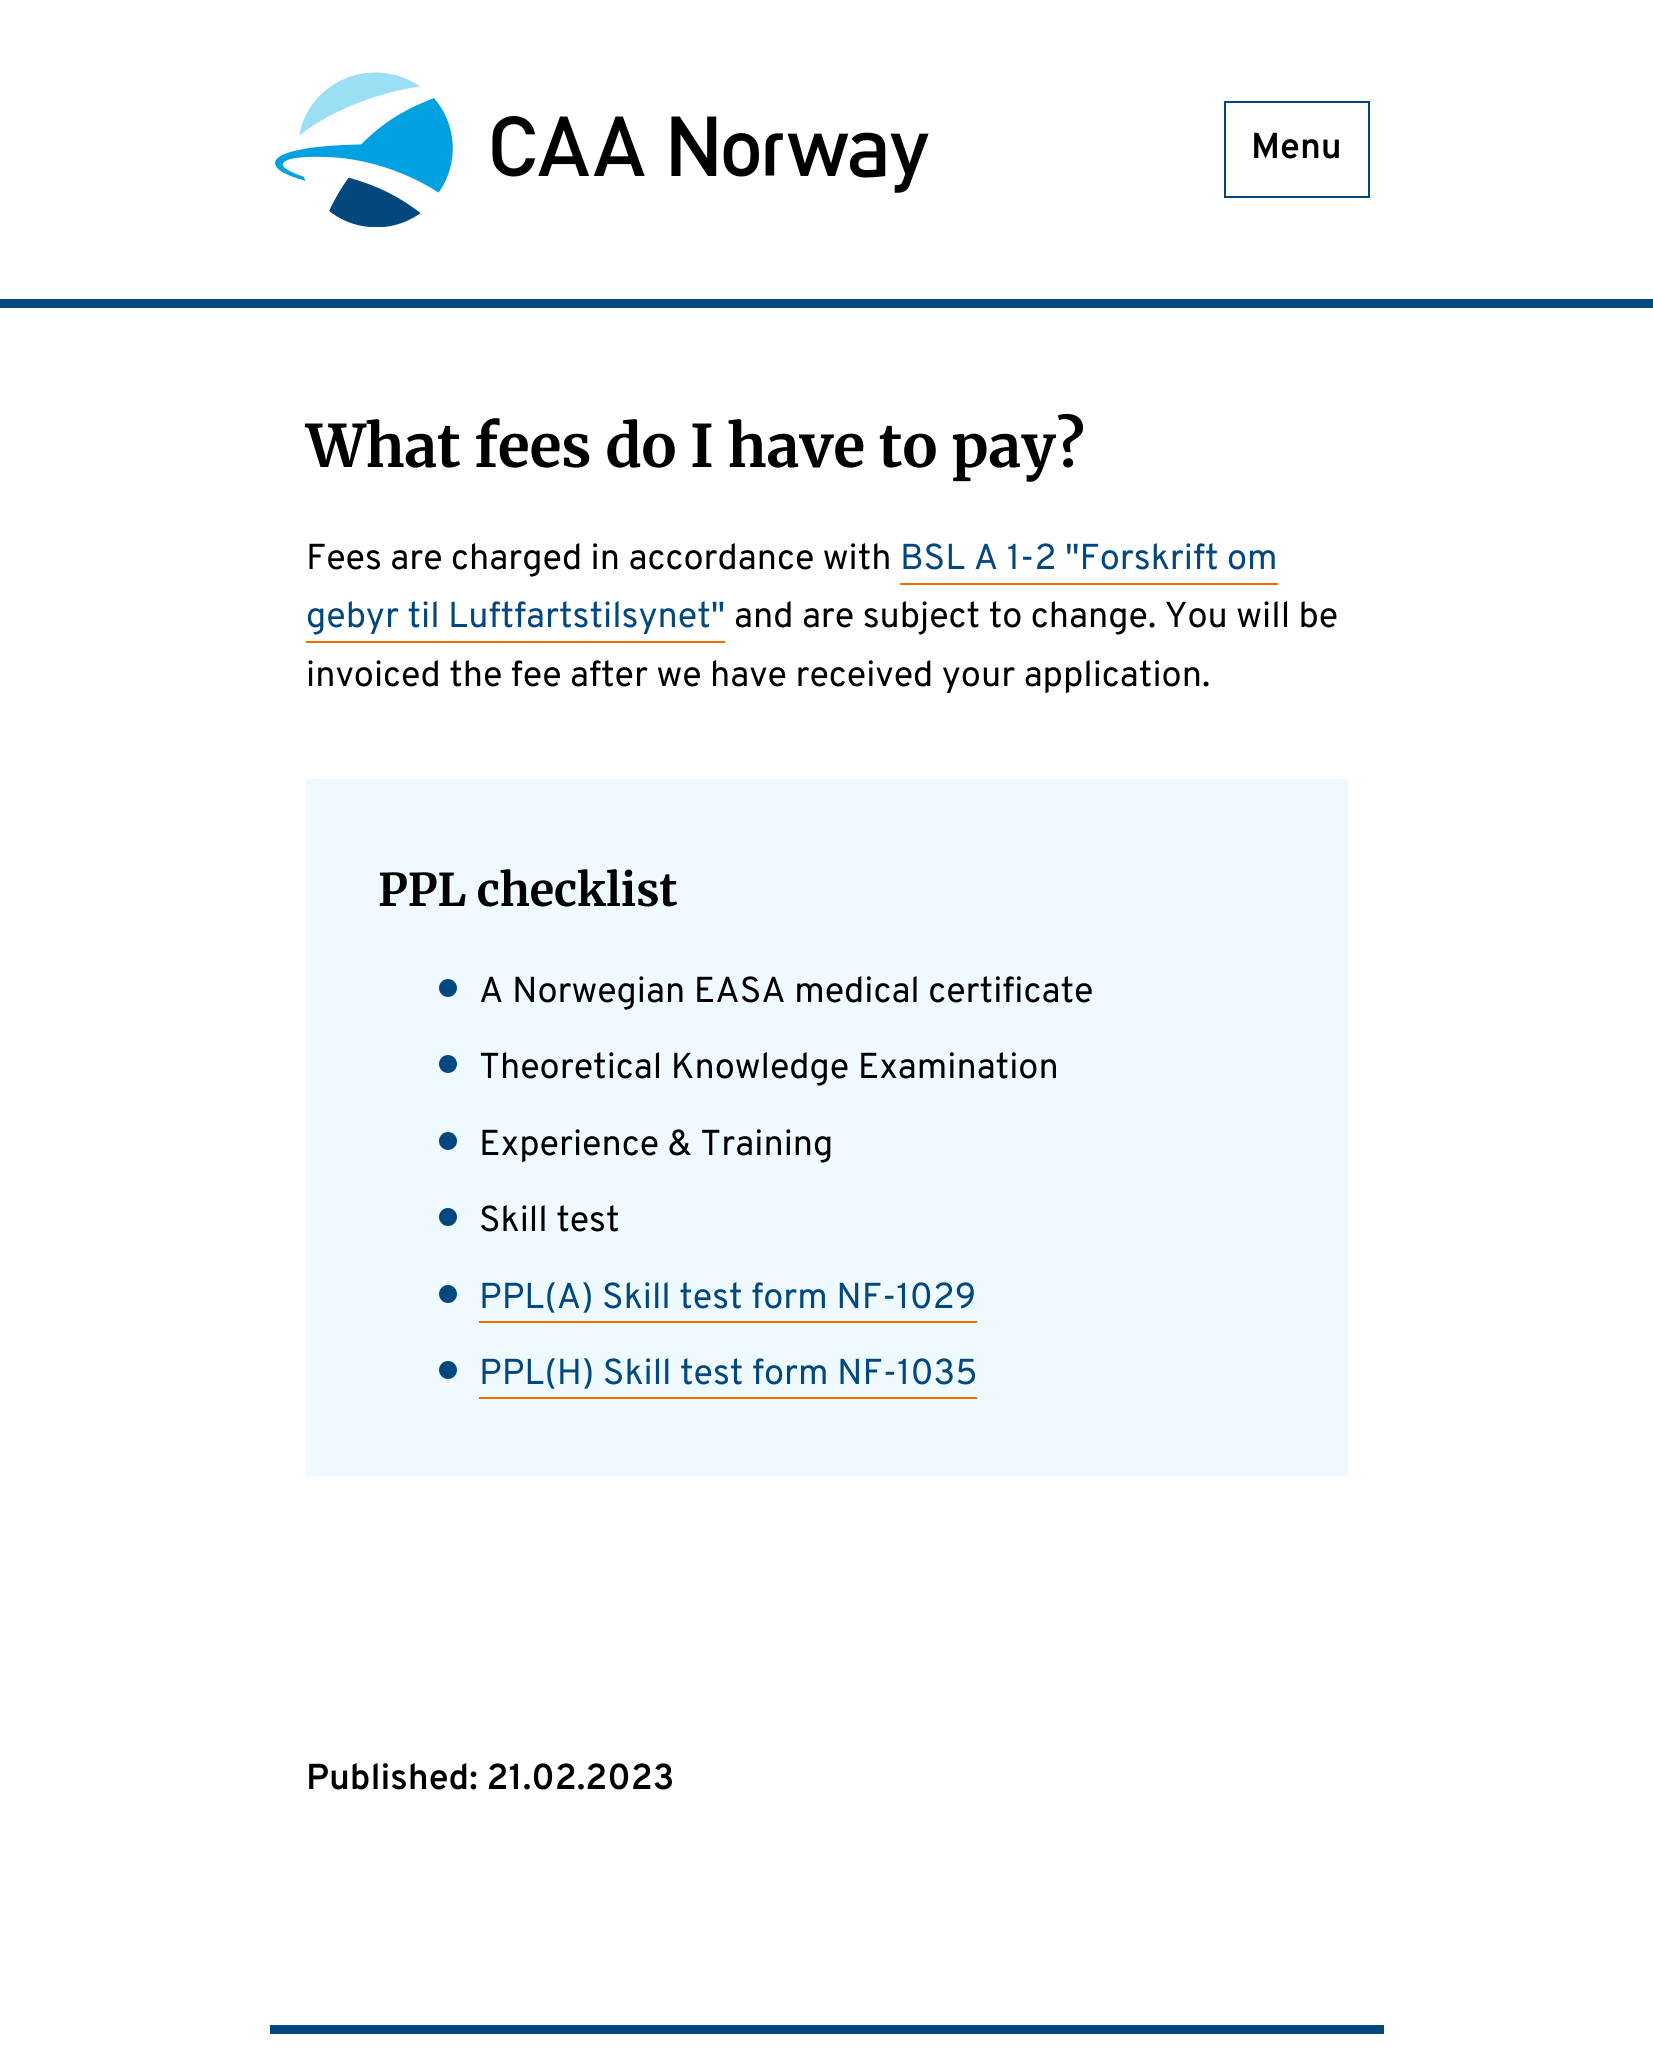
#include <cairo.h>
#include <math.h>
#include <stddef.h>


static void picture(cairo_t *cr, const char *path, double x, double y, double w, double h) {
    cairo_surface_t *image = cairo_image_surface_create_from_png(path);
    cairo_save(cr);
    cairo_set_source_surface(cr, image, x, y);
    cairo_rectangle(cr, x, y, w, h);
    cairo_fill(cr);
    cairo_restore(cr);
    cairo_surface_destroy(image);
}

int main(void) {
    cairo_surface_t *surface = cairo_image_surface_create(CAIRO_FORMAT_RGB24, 1653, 2059);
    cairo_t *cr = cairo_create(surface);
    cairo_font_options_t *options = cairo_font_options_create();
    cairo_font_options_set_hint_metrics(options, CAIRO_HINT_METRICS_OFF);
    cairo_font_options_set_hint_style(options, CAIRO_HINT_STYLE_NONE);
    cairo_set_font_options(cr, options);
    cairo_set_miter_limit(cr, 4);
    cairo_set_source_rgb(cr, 1, 1, 1);
    cairo_paint(cr);
    cairo_set_source_rgb(cr, 0.012, 0.278, 0.498);
    cairo_rectangle(cr, 0, 299, 1653, 9);
    cairo_fill(cr);
    picture(cr, "img1.png", 275, 72, 654, 155);
    cairo_rectangle(cr, 1225, 102, 144, 95);
    cairo_stroke(cr);
    cairo_select_font_face(cr, "Overpass SemiBold", CAIRO_FONT_SLANT_NORMAL, CAIRO_FONT_WEIGHT_NORMAL);
    cairo_set_font_size(cr, 36);
    cairo_set_source_rgb(cr, 0, 0, 0);
    cairo_move_to(cr, 1251, 158);
    cairo_show_text(cr, "Menu");
    cairo_select_font_face(cr, "Merriweather", CAIRO_FONT_SLANT_NORMAL, CAIRO_FONT_WEIGHT_BOLD);
    cairo_set_font_size(cr, 58.5);
    cairo_move_to(cr, 306, 467);
    cairo_show_text(cr, "What fees do I have to pay?");
    cairo_select_font_face(cr, "Overpass", CAIRO_FONT_SLANT_NORMAL, CAIRO_FONT_WEIGHT_NORMAL);
    cairo_set_font_size(cr, 36);
    cairo_move_to(cr, 306, 569);
    cairo_show_text(cr, "Fees are charged in accordance with");
    cairo_set_source_rgb(cr, 0.012, 0.278, 0.498);
    cairo_move_to(cr, 900, 569);
    cairo_show_text(cr, "BSL A 1-2 \"Forskrift om");
    cairo_set_source_rgb(cr, 0.941, 0.424, 0);
    cairo_rectangle(cr, 900, 583, 378, 2);
    cairo_fill(cr);
    cairo_set_source_rgb(cr, 0.012, 0.278, 0.498);
    cairo_move_to(cr, 306, 627);
    cairo_show_text(cr, "gebyr til Luftfartstilsynet\"");
    cairo_set_source_rgb(cr, 0.941, 0.424, 0);
    cairo_rectangle(cr, 306, 641, 419, 2);
    cairo_fill(cr);
    cairo_set_source_rgb(cr, 0, 0, 0);
    cairo_move_to(cr, 734, 627);
    cairo_show_text(cr, "and are subject to change. You will be");
    cairo_move_to(cr, 306, 686);
    cairo_show_text(cr, "invoiced the fee after we have received your application.");
    cairo_set_source_rgb(cr, 0.933, 0.98, 1);
    cairo_rectangle(cr, 306, 779, 1042, 697);
    cairo_fill(cr);
    cairo_select_font_face(cr, "Merriweather", CAIRO_FONT_SLANT_NORMAL, CAIRO_FONT_WEIGHT_BOLD);
    cairo_set_font_size(cr, 45);
    cairo_set_source_rgb(cr, 0, 0, 0);
    cairo_move_to(cr, 378, 906);
    cairo_show_text(cr, "PPL checklist");
    cairo_set_source_rgb(cr, 0.012, 0.278, 0.498);
    cairo_new_path(cr);
    cairo_arc(cr, 448, 988, 9, 0, 2 * M_PI);
    cairo_fill(cr);
    cairo_select_font_face(cr, "Overpass", CAIRO_FONT_SLANT_NORMAL, CAIRO_FONT_WEIGHT_NORMAL);
    cairo_set_font_size(cr, 36);
    cairo_set_source_rgb(cr, 0, 0, 0);
    cairo_move_to(cr, 479, 1002);
    cairo_show_text(cr, "A Norwegian EASA medical certificate");
    cairo_set_source_rgb(cr, 0.012, 0.278, 0.498);
    cairo_new_path(cr);
    cairo_arc(cr, 448, 1064, 9, 0, 2 * M_PI);
    cairo_fill(cr);
    cairo_set_source_rgb(cr, 0, 0, 0);
    cairo_move_to(cr, 479, 1078);
    cairo_show_text(cr, "Theoretical Knowledge Examination");
    cairo_set_source_rgb(cr, 0.012, 0.278, 0.498);
    cairo_new_path(cr);
    cairo_arc(cr, 448, 1141, 9, 0, 2 * M_PI);
    cairo_fill(cr);
    cairo_set_source_rgb(cr, 0, 0, 0);
    cairo_move_to(cr, 479, 1155);
    cairo_show_text(cr, "Experience & Training");
    cairo_set_source_rgb(cr, 0.012, 0.278, 0.498);
    cairo_new_path(cr);
    cairo_arc(cr, 448, 1217, 9, 0, 2 * M_PI);
    cairo_fill(cr);
    cairo_set_source_rgb(cr, 0, 0, 0);
    cairo_move_to(cr, 479, 1231);
    cairo_show_text(cr, "Skill test");
    cairo_set_source_rgb(cr, 0.012, 0.278, 0.498);
    cairo_new_path(cr);
    cairo_arc(cr, 448, 1294, 9, 0, 2 * M_PI);
    cairo_fill(cr);
    cairo_move_to(cr, 479, 1308);
    cairo_show_text(cr, "PPL(A) Skill test form NF-1029");
    cairo_set_source_rgb(cr, 0.941, 0.424, 0);
    cairo_rectangle(cr, 479, 1321, 498, 2);
    cairo_fill(cr);
    cairo_set_source_rgb(cr, 0.012, 0.278, 0.498);
    cairo_arc(cr, 448, 1370, 9, 0, 2 * M_PI);
    cairo_fill(cr);
    cairo_move_to(cr, 479, 1384);
    cairo_show_text(cr, "PPL(H) Skill test form NF-1035");
    cairo_set_source_rgb(cr, 0.941, 0.424, 0);
    cairo_rectangle(cr, 479, 1397, 498, 2);
    cairo_fill(cr);
    cairo_select_font_face(cr, "Overpass SemiBold", CAIRO_FONT_SLANT_NORMAL, CAIRO_FONT_WEIGHT_NORMAL);
    cairo_set_source_rgb(cr, 0, 0, 0);
    cairo_move_to(cr, 306, 1789);
    cairo_show_text(cr, "Published: 21.02.2023");
    cairo_set_source_rgb(cr, 0.012, 0.278, 0.498);
    cairo_rectangle(cr, 270, 2025, 1114, 9);
    cairo_fill(cr);
    cairo_surface_write_to_png(surface, "page.png");
    cairo_font_options_destroy(options);
    cairo_destroy(cr);
    cairo_surface_destroy(surface);
    return 0;
}
